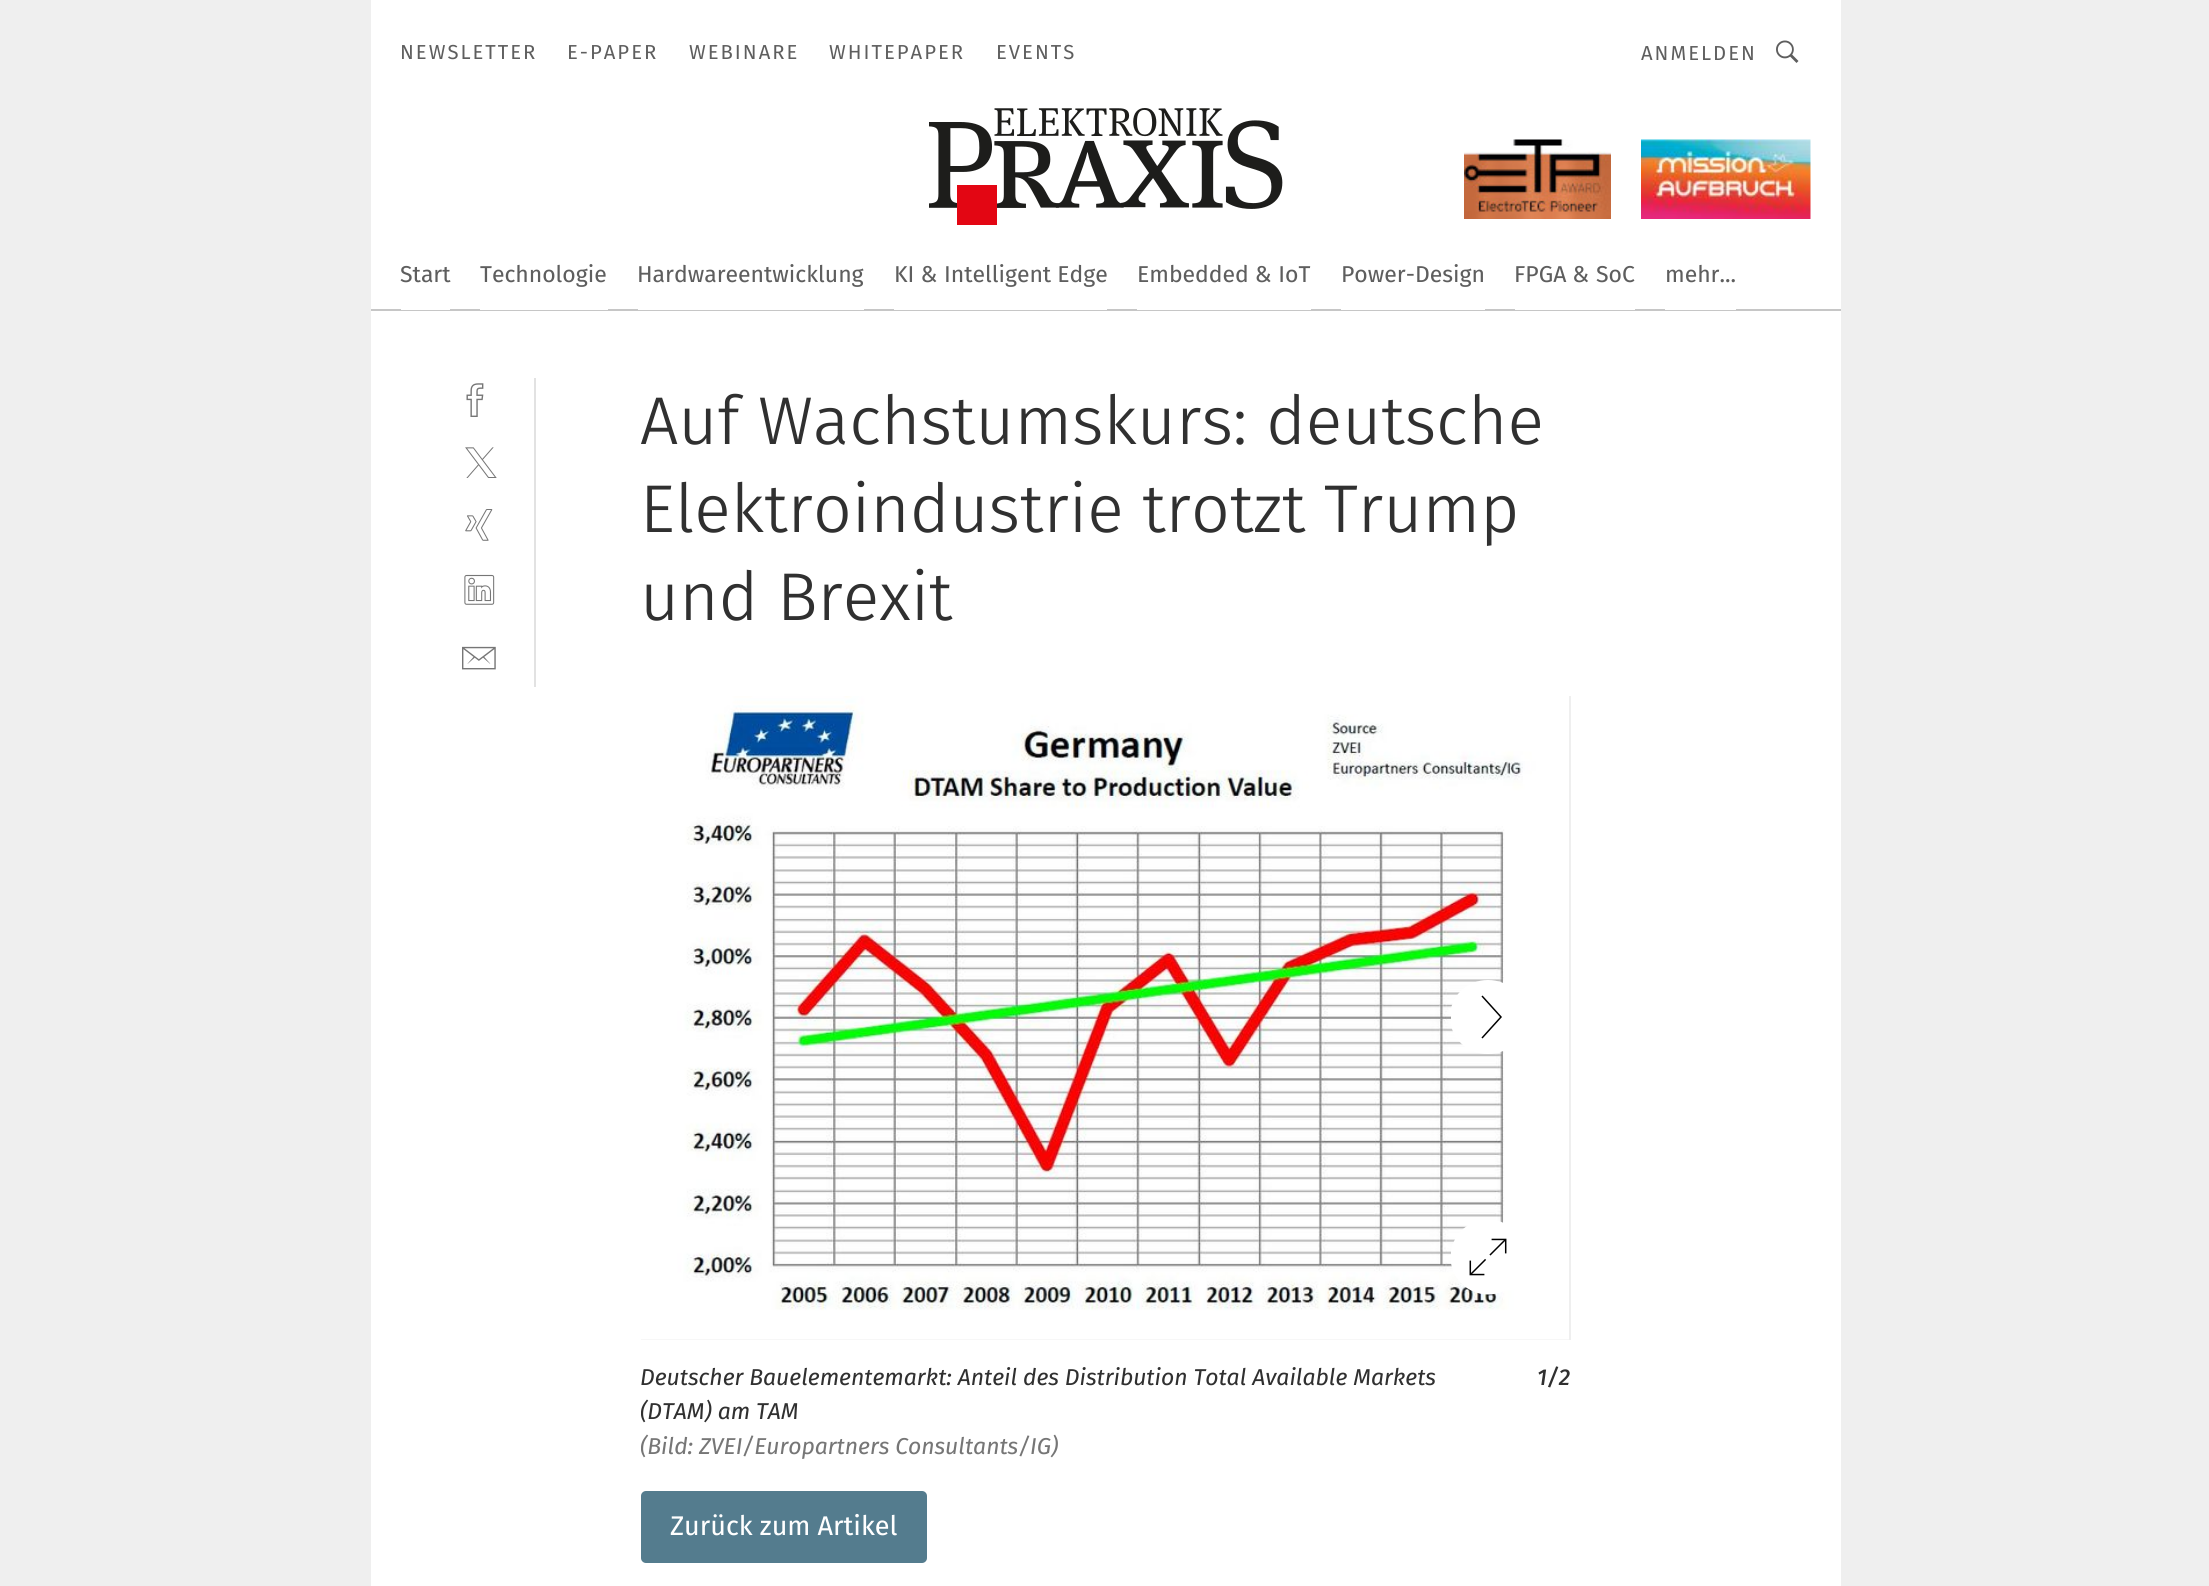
#include <cairo.h>
#include <math.h>
#include <stddef.h>


static void spaced_text(cairo_t *cr, double x, double y, const char *s, double letter, double word) {
    cairo_move_to(cr, x, y);
    while (*s) {
        char ch[5] = {0};
        int n = 0;
        do ch[n++] = *s++; while ((*s & 0xC0) == 0x80);
        cairo_show_text(cr, ch);
        cairo_rel_move_to(cr, letter + word * (*ch == ' '), 0);
    }
}

static void round_rect(cairo_t *cr, double x, double y, double w, double h, double r) {
    cairo_new_sub_path(cr);
    cairo_arc(cr, x + w - r, y + h - r, r, 0, M_PI / 2);
    cairo_arc(cr, x + r, y + h - r, r, M_PI / 2, M_PI);
    cairo_arc(cr, x + r, y + r, r, M_PI, 1.5 * M_PI);
    cairo_arc(cr, x + w - r, y + r, r, 1.5 * M_PI, 2 * M_PI);
    cairo_close_path(cr);
}

static void picture(cairo_t *cr, const char *path, double x, double y, double w, double h) {
    cairo_surface_t *image = cairo_image_surface_create_from_png(path);
    cairo_save(cr);
    cairo_set_source_surface(cr, image, x, y);
    cairo_rectangle(cr, x, y, w, h);
    cairo_fill(cr);
    cairo_restore(cr);
    cairo_surface_destroy(image);
}

int main(void) {
    cairo_surface_t *surface = cairo_image_surface_create(CAIRO_FORMAT_RGB24, 2209, 1586);
    cairo_t *cr = cairo_create(surface);
    cairo_font_options_t *options = cairo_font_options_create();
    cairo_font_options_set_hint_metrics(options, CAIRO_HINT_METRICS_OFF);
    cairo_font_options_set_hint_style(options, CAIRO_HINT_STYLE_NONE);
    cairo_set_font_options(cr, options);
    cairo_set_miter_limit(cr, 4);
    cairo_set_source_rgb(cr, 0.937, 0.937, 0.937);
    cairo_paint(cr);
    cairo_set_source_rgb(cr, 1, 1, 1);
    cairo_rectangle(cr, 371, 0, 1470, 1586);
    cairo_fill(cr);
    cairo_set_source_rgb(cr, 0.776, 0.776, 0.776);
    cairo_rectangle(cr, 371, 309, 1470, 2);
    cairo_fill(cr);
    cairo_select_font_face(cr, "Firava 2", CAIRO_FONT_SLANT_NORMAL, CAIRO_FONT_WEIGHT_NORMAL);
    cairo_set_font_size(cr, 20.25);
    cairo_set_source_rgb(cr, 0.369, 0.369, 0.369);
    spaced_text(cr, 400, 59, "NEWSLETTER", 2, 0);
    spaced_text(cr, 567, 59, "E-PAPER", 2, 0);
    spaced_text(cr, 689, 59, "WEBINARE", 2, 0);
    spaced_text(cr, 829, 59, "WHITEPAPER", 2, 0);
    spaced_text(cr, 996, 59, "EVENTS", 2, 0);
    spaced_text(cr, 1641, 60, "ANMELDEN", 2, 0);
    picture(cr, "img1.png", 1776, 40, 23, 23);
    picture(cr, "img2.png", 929, 108, 354, 117);
    picture(cr, "img3.png", 1464, 139, 147, 80);
    picture(cr, "img4.png", 1641, 139, 170, 80);
    cairo_set_source_rgb(cr, 1, 1, 1);
    cairo_rectangle(cr, 401, 309, 49, 1);
    cairo_fill(cr);
    cairo_select_font_face(cr, "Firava", CAIRO_FONT_SLANT_NORMAL, CAIRO_FONT_WEIGHT_NORMAL);
    cairo_set_font_size(cr, 22.95);
    cairo_set_source_rgb(cr, 0.369, 0.369, 0.369);
    cairo_move_to(cr, 400, 282);
    cairo_show_text(cr, "Start");
    cairo_set_source_rgb(cr, 1, 1, 1);
    cairo_rectangle(cr, 480, 309, 128, 1);
    cairo_fill(cr);
    cairo_set_source_rgb(cr, 0.369, 0.369, 0.369);
    cairo_move_to(cr, 480, 282);
    cairo_show_text(cr, "Technologie");
    cairo_set_source_rgb(cr, 1, 1, 1);
    cairo_rectangle(cr, 638, 309, 226, 1);
    cairo_fill(cr);
    cairo_set_source_rgb(cr, 0.369, 0.369, 0.369);
    cairo_move_to(cr, 637, 282);
    cairo_show_text(cr, "Hardwareentwicklung");
    cairo_set_source_rgb(cr, 1, 1, 1);
    cairo_rectangle(cr, 894, 309, 213, 1);
    cairo_fill(cr);
    cairo_set_source_rgb(cr, 0.369, 0.369, 0.369);
    cairo_move_to(cr, 894, 282);
    cairo_show_text(cr, "KI & Intelligent Edge");
    cairo_set_source_rgb(cr, 1, 1, 1);
    cairo_rectangle(cr, 1137, 309, 174, 1);
    cairo_fill(cr);
    cairo_set_source_rgb(cr, 0.369, 0.369, 0.369);
    cairo_move_to(cr, 1137, 282);
    cairo_show_text(cr, "Embedded & IoT");
    cairo_set_source_rgb(cr, 1, 1, 1);
    cairo_rectangle(cr, 1341, 309, 144, 1);
    cairo_fill(cr);
    cairo_set_source_rgb(cr, 0.369, 0.369, 0.369);
    cairo_move_to(cr, 1341, 282);
    cairo_show_text(cr, "Power-Design");
    cairo_set_source_rgb(cr, 1, 1, 1);
    cairo_rectangle(cr, 1515, 309, 120, 1);
    cairo_fill(cr);
    cairo_set_source_rgb(cr, 0.369, 0.369, 0.369);
    cairo_move_to(cr, 1514, 282);
    cairo_show_text(cr, "FPGA & SoC");
    cairo_set_source_rgb(cr, 1, 1, 1);
    cairo_rectangle(cr, 1665, 309, 71, 1);
    cairo_fill(cr);
    cairo_set_source_rgb(cr, 0.369, 0.369, 0.369);
    cairo_move_to(cr, 1665, 282);
    cairo_show_text(cr, "mehr...");
    cairo_set_source_rgb(cr, 0.886, 0.886, 0.886);
    cairo_rectangle(cr, 534, 378, 2, 309);
    cairo_fill(cr);
    picture(cr, "img5.png", 466, 383, 18, 34);
    picture(cr, "img6.png", 465, 447, 32, 31);
    picture(cr, "img7.png", 465, 509, 28, 32);
    picture(cr, "img8.png", 464, 574, 31, 31);
    picture(cr, "img9.png", 462, 646, 34, 24);
    cairo_select_font_face(cr, "Firava Light", CAIRO_FONT_SLANT_NORMAL, CAIRO_FONT_WEIGHT_NORMAL);
    cairo_set_font_size(cr, 67.5);
    cairo_set_source_rgb(cr, 0.188, 0.188, 0.188);
    cairo_move_to(cr, 640, 444);
    cairo_show_text(cr, "Auf Wachstumskurs: deutsche");
    cairo_move_to(cr, 640, 532);
    cairo_show_text(cr, "Elektroindustrie trotzt Trump");
    cairo_move_to(cr, 640, 620);
    cairo_show_text(cr, "und Brexit");
    cairo_set_source_rgb(cr, 0.937, 0.937, 0.937);
    cairo_rectangle(cr, 641, 696, 930, 644);
    cairo_fill(cr);
    picture(cr, "img10.png", 641, 696, 928, 644);
    cairo_save(cr);
    cairo_rectangle(cr, 1451, 980, 75, 75);
    cairo_clip(cr);
    cairo_set_source_rgb(cr, 1, 1, 1);
    cairo_new_path(cr);
    cairo_move_to(cr, 1488, 980);
    cairo_curve_to(cr, 1467, 980, 1450, 996, 1450, 1017);
    cairo_curve_to(cr, 1450, 1038, 1467, 1054, 1488, 1054);
    cairo_curve_to(cr, 1509, 1054, 1526, 1038, 1526, 1017);
    cairo_curve_to(cr, 1526, 996, 1509, 980, 1488, 980);
    cairo_fill(cr);
    cairo_restore(cr);
    cairo_new_path(cr);
    cairo_move_to(cr, 1482, 1038);
    cairo_line_to(cr, 1501, 1017);
    cairo_line_to(cr, 1482, 996);
    cairo_set_source_rgb(cr, 0, 0, 0);
    cairo_set_line_width(cr, 1.5);
    cairo_stroke(cr);
    picture(cr, "img11.png", 1451, 1221, 56, 74);
    cairo_select_font_face(cr, "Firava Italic", CAIRO_FONT_SLANT_ITALIC, CAIRO_FONT_WEIGHT_NORMAL);
    cairo_set_font_size(cr, 22.95);
    cairo_set_source_rgb(cr, 0.188, 0.188, 0.188);
    cairo_move_to(cr, 640, 1385);
    cairo_show_text(cr, "Deutscher Bauelementemarkt: Anteil des Distribution Total Available Markets");
    cairo_save(cr);
    cairo_rectangle(cr, 641, 696, 930, 768);
    cairo_clip(cr);
    cairo_move_to(cr, 640, 1419);
    cairo_show_text(cr, "(DTAM) am TAM");
    cairo_set_source_rgb(cr, 0.463, 0.463, 0.463);
    cairo_move_to(cr, 640, 1454);
    cairo_show_text(cr, "(Bild:");
    cairo_restore(cr);
    cairo_set_source_rgb(cr, 0.463, 0.463, 0.463);
    cairo_move_to(cr, 699, 1454);
    cairo_show_text(cr, "ZVEI/Europartners Consultants/IG)");
    cairo_select_font_face(cr, "Firava Italic Medium", CAIRO_FONT_SLANT_ITALIC, CAIRO_FONT_WEIGHT_NORMAL);
    cairo_set_source_rgb(cr, 0.188, 0.188, 0.188);
    cairo_move_to(cr, 1537, 1385);
    cairo_show_text(cr, "1/2");
    cairo_set_source_rgb(cr, 0.329, 0.486, 0.557);
    round_rect(cr, 641, 1491, 286, 72, 5);
    cairo_fill(cr);
    cairo_select_font_face(cr, "Firava", CAIRO_FONT_SLANT_NORMAL, CAIRO_FONT_WEIGHT_NORMAL);
    cairo_set_font_size(cr, 27);
    cairo_set_source_rgb(cr, 1, 1, 1);
    cairo_move_to(cr, 670, 1535);
    cairo_show_text(cr, "Zurück zum Artikel");
    cairo_surface_write_to_png(surface, "page.png");
    cairo_font_options_destroy(options);
    cairo_destroy(cr);
    cairo_surface_destroy(surface);
    return 0;
}
